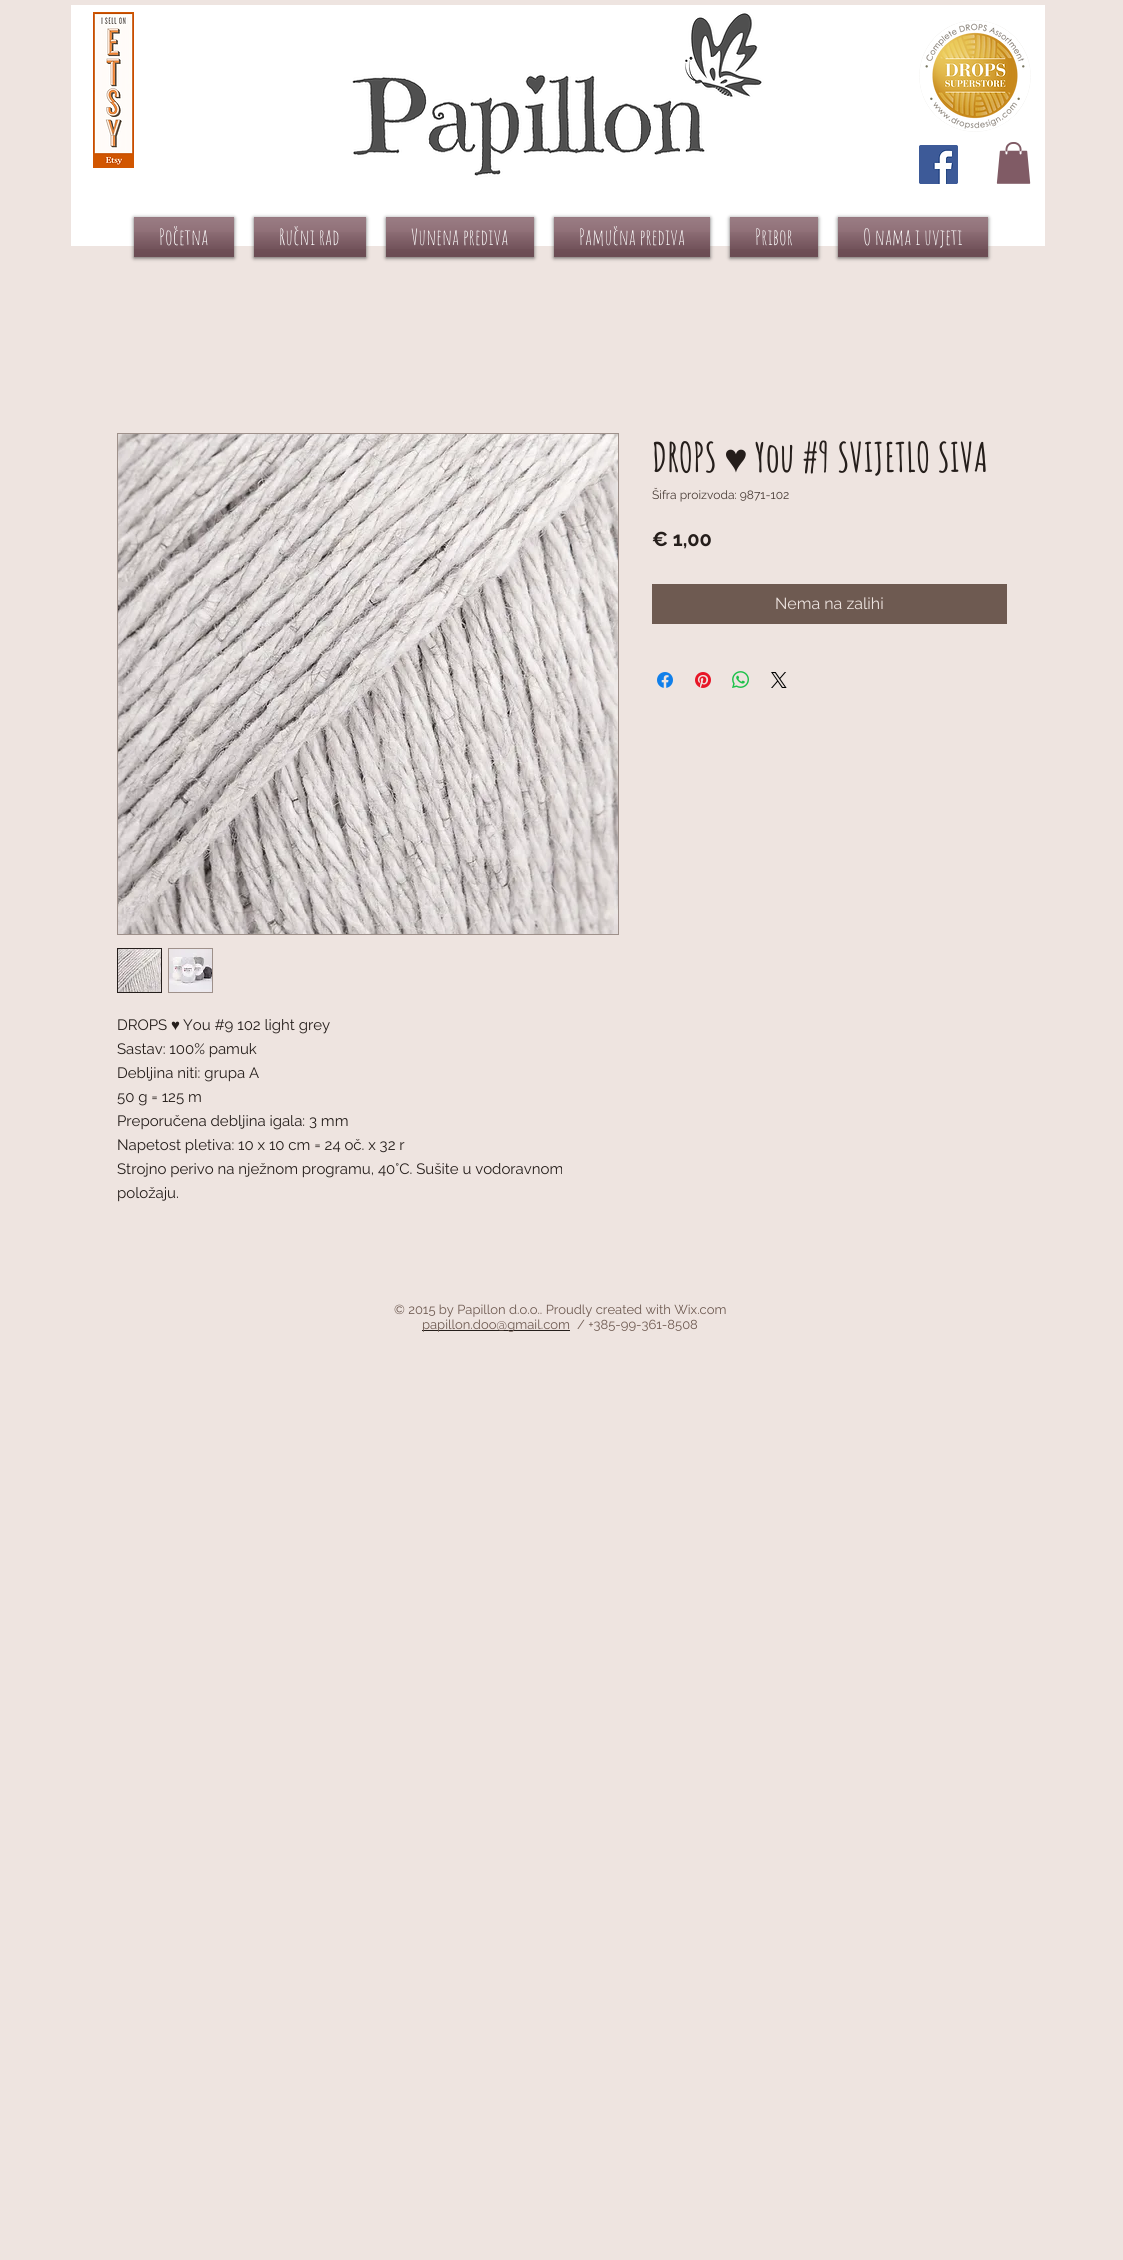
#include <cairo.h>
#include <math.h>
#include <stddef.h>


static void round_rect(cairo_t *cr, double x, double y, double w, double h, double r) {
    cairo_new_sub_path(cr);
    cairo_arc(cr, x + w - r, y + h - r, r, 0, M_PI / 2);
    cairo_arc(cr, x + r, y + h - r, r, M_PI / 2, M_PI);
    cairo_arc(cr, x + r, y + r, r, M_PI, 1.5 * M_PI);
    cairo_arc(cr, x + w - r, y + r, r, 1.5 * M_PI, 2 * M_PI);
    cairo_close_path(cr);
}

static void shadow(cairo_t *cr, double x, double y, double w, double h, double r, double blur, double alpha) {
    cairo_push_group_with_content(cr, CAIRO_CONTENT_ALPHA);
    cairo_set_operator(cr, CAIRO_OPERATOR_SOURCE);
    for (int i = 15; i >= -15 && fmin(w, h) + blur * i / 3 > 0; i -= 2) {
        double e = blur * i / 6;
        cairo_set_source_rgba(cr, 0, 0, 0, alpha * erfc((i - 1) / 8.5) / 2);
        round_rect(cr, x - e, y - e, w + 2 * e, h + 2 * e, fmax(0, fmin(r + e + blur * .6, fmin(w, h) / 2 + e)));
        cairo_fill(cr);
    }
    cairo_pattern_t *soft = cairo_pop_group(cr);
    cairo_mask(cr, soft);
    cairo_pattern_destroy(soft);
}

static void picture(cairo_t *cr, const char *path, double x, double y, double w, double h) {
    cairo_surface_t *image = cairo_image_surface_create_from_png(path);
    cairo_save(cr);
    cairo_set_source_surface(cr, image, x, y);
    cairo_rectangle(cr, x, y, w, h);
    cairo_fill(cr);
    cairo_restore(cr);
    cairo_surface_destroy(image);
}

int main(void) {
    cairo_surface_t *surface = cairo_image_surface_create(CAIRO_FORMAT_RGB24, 1123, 2260);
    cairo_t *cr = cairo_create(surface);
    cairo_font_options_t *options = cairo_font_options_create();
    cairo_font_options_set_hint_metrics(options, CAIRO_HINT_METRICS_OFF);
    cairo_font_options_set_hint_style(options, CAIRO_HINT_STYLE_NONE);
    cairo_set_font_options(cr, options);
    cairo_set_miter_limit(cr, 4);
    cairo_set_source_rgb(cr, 0.933, 0.894, 0.878);
    cairo_paint(cr);
    picture(cr, "img1.png", 71, 5, 974, 241);
    picture(cr, "img2.png", 93, 12, 41, 156);
    picture(cr, "img3.png", 919, 20, 112, 112);
    picture(cr, "img4.png", 919, 145, 39, 39);
    picture(cr, "img5.png", 996, 142, 35, 42);
    cairo_set_source_rgb(cr, 0, 0, 0);
    shadow(cr, 134, 218, 100, 40, 0, 2, 0.6);
    cairo_set_source_rgb(cr, 0.502, 0.357, 0.392);
    cairo_rectangle(cr, 134, 217, 100, 40);
    cairo_fill(cr);
    picture(cr, "img6.png", 134, 217, 100, 32);
    picture(cr, "img7.png", 134, 232, 100, 25);
    cairo_select_font_face(cr, "Amatic SC", CAIRO_FONT_SLANT_NORMAL, CAIRO_FONT_WEIGHT_NORMAL);
    cairo_set_font_size(cr, 22);
    cairo_set_source_rgb(cr, 1, 1, 1);
    cairo_move_to(cr, 159, 245);
    cairo_show_text(cr, "Početna");
    cairo_set_source_rgb(cr, 0, 0, 0);
    shadow(cr, 254, 218, 112, 40, 0, 2, 0.6);
    cairo_set_source_rgb(cr, 0.502, 0.357, 0.392);
    cairo_rectangle(cr, 254, 217, 112, 40);
    cairo_fill(cr);
    picture(cr, "img8.png", 254, 217, 112, 32);
    picture(cr, "img9.png", 254, 232, 112, 25);
    cairo_set_source_rgb(cr, 1, 1, 1);
    cairo_move_to(cr, 279, 245);
    cairo_show_text(cr, "Ručni rad");
    cairo_set_source_rgb(cr, 0, 0, 0);
    shadow(cr, 386, 218, 148, 40, 0, 2, 0.6);
    cairo_set_source_rgb(cr, 0.502, 0.357, 0.392);
    cairo_rectangle(cr, 386, 217, 148, 40);
    cairo_fill(cr);
    picture(cr, "img10.png", 386, 217, 148, 32);
    picture(cr, "img11.png", 386, 232, 148, 25);
    cairo_set_source_rgb(cr, 1, 1, 1);
    cairo_move_to(cr, 411, 245);
    cairo_show_text(cr, "Vunena prediva");
    cairo_set_source_rgb(cr, 0, 0, 0);
    shadow(cr, 554, 218, 156, 40, 0, 2, 0.6);
    cairo_set_source_rgb(cr, 0.502, 0.357, 0.392);
    cairo_rectangle(cr, 554, 217, 156, 40);
    cairo_fill(cr);
    picture(cr, "img12.png", 554, 217, 156, 32);
    picture(cr, "img13.png", 554, 232, 156, 25);
    cairo_set_source_rgb(cr, 1, 1, 1);
    cairo_move_to(cr, 579, 245);
    cairo_show_text(cr, "Pamučna prediva");
    cairo_set_source_rgb(cr, 0, 0, 0);
    shadow(cr, 730, 218, 88, 40, 0, 2, 0.6);
    cairo_set_source_rgb(cr, 0.502, 0.357, 0.392);
    cairo_rectangle(cr, 730, 217, 88, 40);
    cairo_fill(cr);
    picture(cr, "img14.png", 730, 217, 88, 32);
    picture(cr, "img15.png", 730, 232, 88, 25);
    cairo_set_source_rgb(cr, 1, 1, 1);
    cairo_move_to(cr, 755, 245);
    cairo_show_text(cr, "Pribor");
    cairo_set_source_rgb(cr, 0, 0, 0);
    shadow(cr, 838, 218, 150, 40, 0, 2, 0.6);
    cairo_set_source_rgb(cr, 0.502, 0.357, 0.392);
    cairo_rectangle(cr, 838, 217, 150, 40);
    cairo_fill(cr);
    picture(cr, "img16.png", 838, 217, 150, 32);
    picture(cr, "img17.png", 838, 232, 150, 25);
    cairo_set_source_rgb(cr, 1, 1, 1);
    cairo_move_to(cr, 863, 245);
    cairo_show_text(cr, "O nama i uvjeti");
    cairo_select_font_face(cr, "Amatic SC", CAIRO_FONT_SLANT_NORMAL, CAIRO_FONT_WEIGHT_BOLD);
    cairo_set_font_size(cr, 40);
    cairo_set_source_rgb(cr, 0.145, 0.118, 0.106);
    cairo_move_to(cr, 652, 472);
    cairo_show_text(cr, "DROPS");
    cairo_select_font_face(cr, "Liberation Serif", CAIRO_FONT_SLANT_NORMAL, CAIRO_FONT_WEIGHT_BOLD);
    cairo_move_to(cr, 724, 472);
    cairo_show_text(cr, "♥");
    cairo_select_font_face(cr, "Amatic SC", CAIRO_FONT_SLANT_NORMAL, CAIRO_FONT_WEIGHT_BOLD);
    cairo_move_to(cr, 755, 472);
    cairo_show_text(cr, "You #9 SVIJETLO SIVA");
    cairo_select_font_face(cr, "Raleway", CAIRO_FONT_SLANT_NORMAL, CAIRO_FONT_WEIGHT_NORMAL);
    cairo_set_font_size(cr, 12);
    cairo_set_source_rgb(cr, 0.286, 0.235, 0.212);
    cairo_move_to(cr, 652, 499);
    cairo_show_text(cr, "Šifra proizvoda: 9871-102");
    cairo_select_font_face(cr, "Raleway", CAIRO_FONT_SLANT_NORMAL, CAIRO_FONT_WEIGHT_BOLD);
    cairo_set_font_size(cr, 20);
    cairo_set_source_rgb(cr, 0.145, 0.118, 0.106);
    cairo_move_to(cr, 652, 546);
    cairo_show_text(cr, "€ 1,00");
    cairo_set_source_rgb(cr, 0.431, 0.353, 0.318);
    cairo_rectangle(cr, 652, 584, 355, 40);
    cairo_fill(cr);
    cairo_select_font_face(cr, "Raleway", CAIRO_FONT_SLANT_NORMAL, CAIRO_FONT_WEIGHT_NORMAL);
    cairo_set_font_size(cr, 16);
    cairo_set_source_rgb(cr, 0.933, 0.894, 0.878);
    cairo_move_to(cr, 775, 609);
    cairo_show_text(cr, "Nema na zalihi");
    picture(cr, "img18.png", 657, 672, 16, 16);
    picture(cr, "img19.png", 695, 672, 16, 16);
    picture(cr, "img20.png", 732, 671, 17, 17);
    picture(cr, "img21.png", 771, 672, 16, 16);
    cairo_rectangle(cr, 117.5, 433.5, 501, 501);
    cairo_set_source_rgb(cr, 0.62, 0.565, 0.541);
    cairo_set_line_width(cr, 1);
    cairo_stroke(cr);
    picture(cr, "img22.png", 118, 434, 500, 500);
    cairo_rectangle(cr, 117.5, 948.5, 44, 44);
    cairo_set_source_rgb(cr, 0.145, 0.118, 0.106);
    cairo_stroke(cr);
    picture(cr, "img23.png", 118, 949, 43, 43);
    cairo_set_source_rgb(cr, 0.62, 0.565, 0.541);
    cairo_rectangle(cr, 168, 948, 45, 45);
    cairo_fill(cr);
    picture(cr, "img24.png", 169, 949, 43, 43);
    cairo_set_font_size(cr, 15);
    cairo_set_source_rgb(cr, 0.145, 0.118, 0.106);
    cairo_move_to(cr, 117, 1030);
    cairo_show_text(cr, "DROPS");
    cairo_select_font_face(cr, "Liberation Sans", CAIRO_FONT_SLANT_NORMAL, CAIRO_FONT_WEIGHT_NORMAL);
    cairo_move_to(cr, 171, 1030);
    cairo_show_text(cr, "♥");
    cairo_select_font_face(cr, "Raleway", CAIRO_FONT_SLANT_NORMAL, CAIRO_FONT_WEIGHT_NORMAL);
    cairo_move_to(cr, 183, 1030);
    cairo_show_text(cr, "You #9 102 light grey");
    cairo_move_to(cr, 117, 1054);
    cairo_show_text(cr, "Sastav: 100% pamuk");
    cairo_move_to(cr, 117, 1078);
    cairo_show_text(cr, "Debljina niti: grupa A");
    cairo_move_to(cr, 117, 1102);
    cairo_show_text(cr, "50 g = 125 m");
    cairo_move_to(cr, 117, 1126);
    cairo_show_text(cr, "Preporučena debljina igala: 3 mm");
    cairo_move_to(cr, 117, 1150);
    cairo_show_text(cr, "Napetost pletiva: 10 x 10 cm = 24 oč. x 32 r");
    cairo_move_to(cr, 117, 1174);
    cairo_show_text(cr, "Strojno perivo na nježnom programu, 40°C. Sušite u vodoravnom");
    cairo_move_to(cr, 117, 1198);
    cairo_show_text(cr, "položaju.");
    cairo_set_font_size(cr, 13);
    cairo_set_source_rgb(cr, 0.431, 0.353, 0.318);
    cairo_move_to(cr, 394, 1314);
    cairo_show_text(cr, "© 2015 by Papillon d.o.o.. Proudly created with Wix.com");
    cairo_set_source_rgb(cr, 0.145, 0.118, 0.106);
    cairo_rectangle(cr, 422, 1330, 148, 1);
    cairo_fill(cr);
    cairo_set_source_rgb(cr, 0.431, 0.353, 0.318);
    cairo_move_to(cr, 422, 1329);
    cairo_show_text(cr, "papillon.doo@gmail.com");
    cairo_move_to(cr, 577, 1329);
    cairo_show_text(cr, "/ +385-99-361-8508");
    cairo_surface_write_to_png(surface, "page.png");
    cairo_font_options_destroy(options);
    cairo_destroy(cr);
    cairo_surface_destroy(surface);
    return 0;
}
